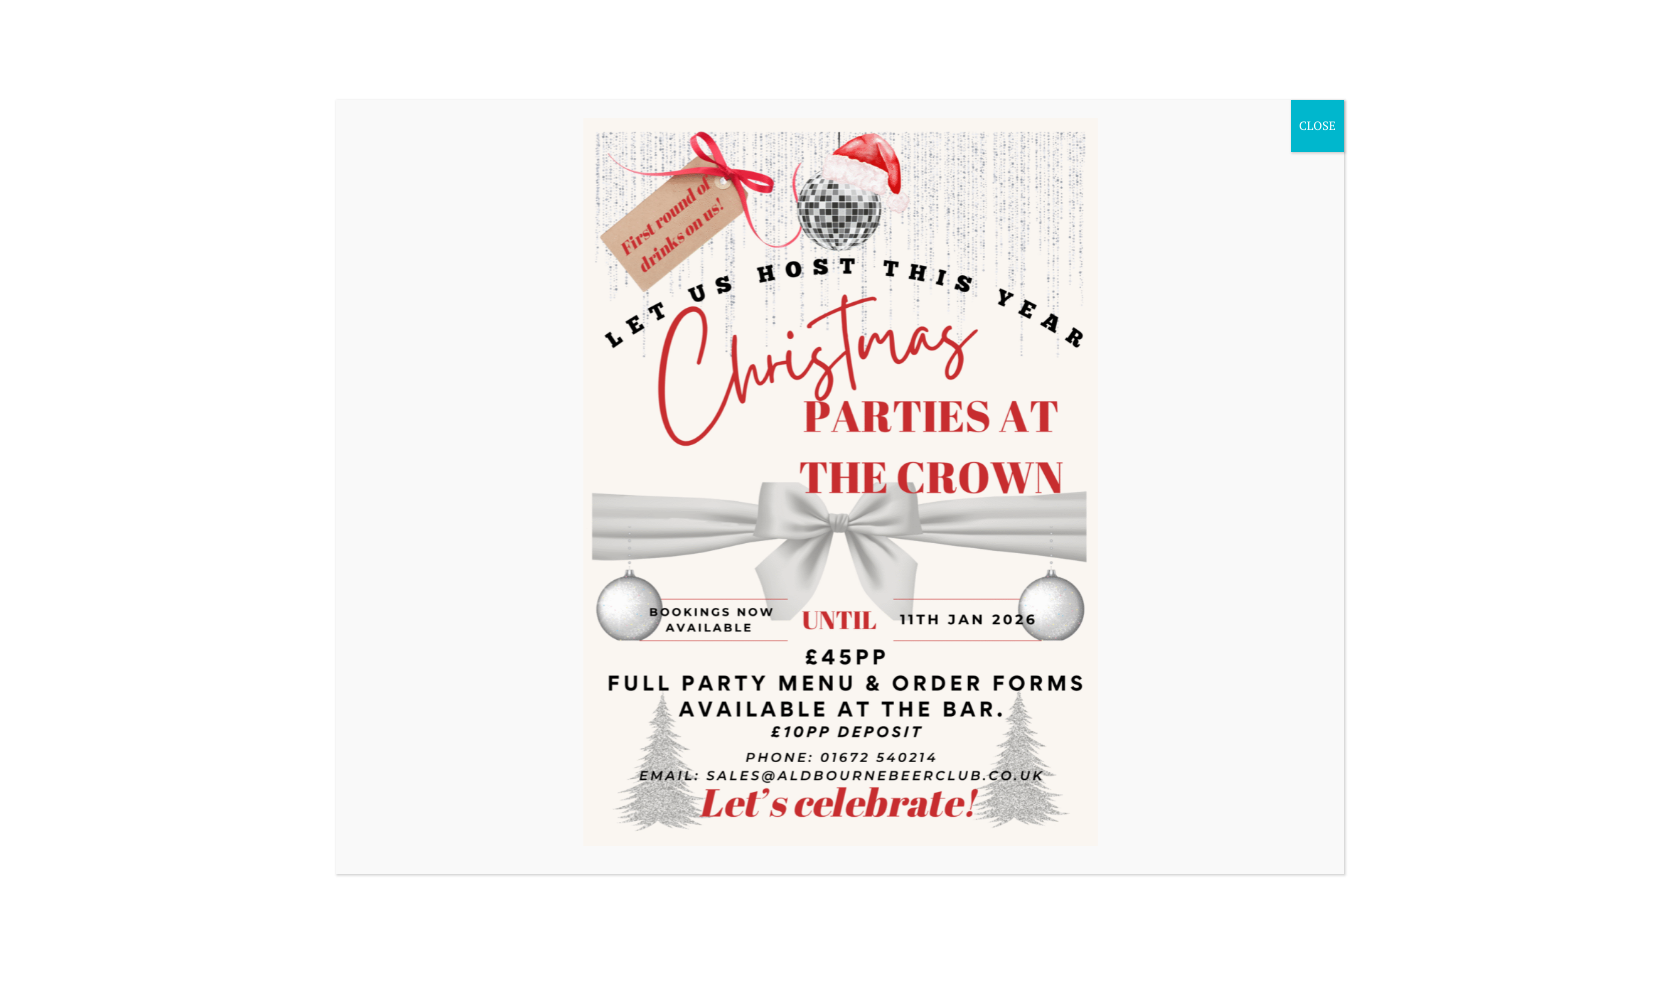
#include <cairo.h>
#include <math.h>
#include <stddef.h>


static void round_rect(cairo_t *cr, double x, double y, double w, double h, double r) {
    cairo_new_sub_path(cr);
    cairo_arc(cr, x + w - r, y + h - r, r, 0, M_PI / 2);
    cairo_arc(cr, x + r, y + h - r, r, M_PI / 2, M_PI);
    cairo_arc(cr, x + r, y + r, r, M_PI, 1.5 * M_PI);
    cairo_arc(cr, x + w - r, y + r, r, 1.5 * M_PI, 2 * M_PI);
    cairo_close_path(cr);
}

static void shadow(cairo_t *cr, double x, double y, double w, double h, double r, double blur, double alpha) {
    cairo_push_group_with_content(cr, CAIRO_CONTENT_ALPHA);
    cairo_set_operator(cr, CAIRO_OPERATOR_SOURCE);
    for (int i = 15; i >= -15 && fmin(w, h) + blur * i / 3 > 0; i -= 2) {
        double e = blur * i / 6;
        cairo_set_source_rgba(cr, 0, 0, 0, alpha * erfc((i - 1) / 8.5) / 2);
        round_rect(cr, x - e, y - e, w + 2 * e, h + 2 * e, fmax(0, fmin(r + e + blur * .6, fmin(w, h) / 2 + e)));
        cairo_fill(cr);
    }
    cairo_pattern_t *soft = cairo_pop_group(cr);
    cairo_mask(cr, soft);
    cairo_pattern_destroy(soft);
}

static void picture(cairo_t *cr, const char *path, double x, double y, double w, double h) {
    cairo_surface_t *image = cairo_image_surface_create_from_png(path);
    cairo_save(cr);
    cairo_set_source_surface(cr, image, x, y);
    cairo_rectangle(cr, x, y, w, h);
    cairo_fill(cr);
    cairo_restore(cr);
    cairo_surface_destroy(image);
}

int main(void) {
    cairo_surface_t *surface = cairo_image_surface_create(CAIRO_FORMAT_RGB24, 1680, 992);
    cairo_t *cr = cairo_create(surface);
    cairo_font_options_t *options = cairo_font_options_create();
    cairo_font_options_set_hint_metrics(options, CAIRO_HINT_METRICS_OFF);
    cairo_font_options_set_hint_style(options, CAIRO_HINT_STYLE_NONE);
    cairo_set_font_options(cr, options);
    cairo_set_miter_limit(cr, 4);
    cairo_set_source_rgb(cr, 1, 1, 1);
    cairo_paint(cr);
    cairo_set_source_rgb(cr, 0.008, 0.008, 0.008);
    shadow(cr, 337, 101, 1008, 774, 0, 1.5, 0.23);
    cairo_set_source_rgb(cr, 0.976, 0.976, 0.976);
    cairo_rectangle(cr, 336, 100, 1008, 774);
    cairo_fill(cr);
    picture(cr, "img1.png", 583, 118, 515, 728);
    cairo_set_source_rgb(cr, 0.008, 0.008, 0.008);
    shadow(cr, 1292, 101, 53, 52, 0, 1.5, 0.23);
    cairo_set_source_rgb(cr, 0, 0.718, 0.804);
    cairo_rectangle(cr, 1291, 100, 53, 52);
    cairo_fill(cr);
    cairo_select_font_face(cr, "PT Serif", CAIRO_FONT_SLANT_NORMAL, CAIRO_FONT_WEIGHT_NORMAL);
    cairo_set_font_size(cr, 12);
    cairo_set_source_rgb(cr, 1, 1, 1);
    cairo_move_to(cr, 1299, 130);
    cairo_show_text(cr, "CLOSE");
    cairo_surface_write_to_png(surface, "page.png");
    cairo_font_options_destroy(options);
    cairo_destroy(cr);
    cairo_surface_destroy(surface);
    return 0;
}
